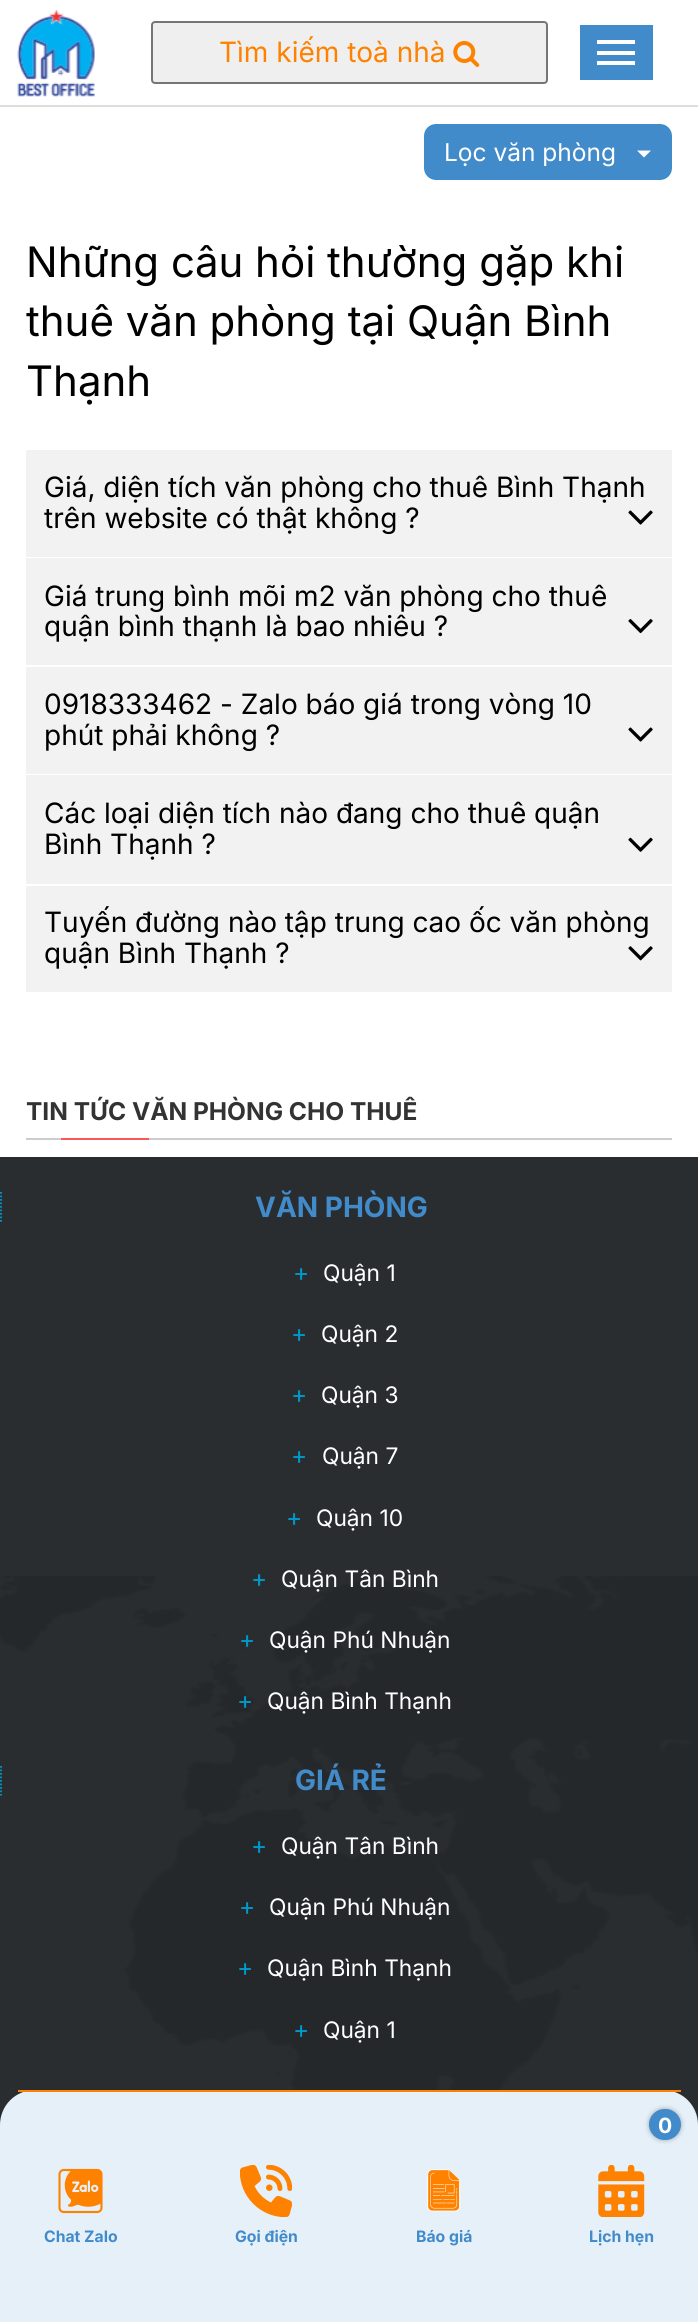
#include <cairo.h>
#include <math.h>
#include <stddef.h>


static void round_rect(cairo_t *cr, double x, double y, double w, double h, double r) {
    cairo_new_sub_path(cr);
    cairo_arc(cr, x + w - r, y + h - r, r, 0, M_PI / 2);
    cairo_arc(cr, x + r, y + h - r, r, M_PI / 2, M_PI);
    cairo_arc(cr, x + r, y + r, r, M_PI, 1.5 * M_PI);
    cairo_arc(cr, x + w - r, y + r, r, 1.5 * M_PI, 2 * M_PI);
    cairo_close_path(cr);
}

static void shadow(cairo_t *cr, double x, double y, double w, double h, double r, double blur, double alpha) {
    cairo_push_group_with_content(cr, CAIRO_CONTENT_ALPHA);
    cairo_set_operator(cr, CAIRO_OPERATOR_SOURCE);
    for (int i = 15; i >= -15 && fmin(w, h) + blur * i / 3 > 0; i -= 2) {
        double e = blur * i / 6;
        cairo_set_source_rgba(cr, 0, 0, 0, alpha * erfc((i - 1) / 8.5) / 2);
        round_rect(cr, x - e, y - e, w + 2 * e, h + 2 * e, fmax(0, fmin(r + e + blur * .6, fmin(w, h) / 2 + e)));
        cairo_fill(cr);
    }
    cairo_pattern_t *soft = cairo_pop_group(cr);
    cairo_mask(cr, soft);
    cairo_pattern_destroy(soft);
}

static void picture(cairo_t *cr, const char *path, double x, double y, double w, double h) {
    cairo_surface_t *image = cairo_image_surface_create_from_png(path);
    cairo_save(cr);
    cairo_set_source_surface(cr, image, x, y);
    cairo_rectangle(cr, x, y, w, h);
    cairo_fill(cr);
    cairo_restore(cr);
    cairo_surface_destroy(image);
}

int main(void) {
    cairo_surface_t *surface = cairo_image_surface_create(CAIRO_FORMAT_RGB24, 698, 2322);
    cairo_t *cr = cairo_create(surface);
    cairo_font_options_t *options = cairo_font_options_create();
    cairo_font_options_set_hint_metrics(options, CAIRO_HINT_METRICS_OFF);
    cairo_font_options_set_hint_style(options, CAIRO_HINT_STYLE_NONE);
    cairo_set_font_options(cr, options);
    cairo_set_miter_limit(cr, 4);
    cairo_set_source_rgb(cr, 1, 1, 1);
    cairo_paint(cr);
    cairo_set_source_rgb(cr, 0.867, 0.867, 0.867);
    cairo_rectangle(cr, 0, 105, 698, 2);
    cairo_fill(cr);
    picture(cr, "img1.png", 17, 9, 78, 88);
    cairo_set_source_rgb(cr, 0.937, 0.937, 0.937);
    round_rect(cr, 152, 22, 395, 61, 3);
    cairo_fill_preserve(cr);
    cairo_set_source_rgb(cr, 0.463, 0.463, 0.463);
    cairo_stroke(cr);
    cairo_select_font_face(cr, "Inter", CAIRO_FONT_SLANT_NORMAL, CAIRO_FONT_WEIGHT_NORMAL);
    cairo_set_font_size(cr, 28);
    cairo_set_source_rgb(cr, 1, 0.506, 0);
    cairo_move_to(cr, 219, 62);
    cairo_show_text(cr, "Tìm kiếm toà nhà");
    picture(cr, "img2.png", 453, 41, 27, 26);
    cairo_set_source_rgb(cr, 0.259, 0.545, 0.792);
    cairo_rectangle(cr, 580, 25, 73, 55);
    cairo_fill(cr);
    cairo_set_source_rgb(cr, 1, 1, 1);
    cairo_rectangle(cr, 597, 40, 38, 4);
    cairo_fill(cr);
    cairo_rectangle(cr, 597, 51, 38, 4);
    cairo_fill(cr);
    cairo_rectangle(cr, 597, 61, 38, 4);
    cairo_fill(cr);
    cairo_set_source_rgb(cr, 0.259, 0.545, 0.792);
    round_rect(cr, 424, 124, 248, 56, 12);
    cairo_fill(cr);
    cairo_set_font_size(cr, 24.5);
    cairo_set_source_rgb(cr, 1, 1, 1);
    cairo_move_to(cr, 444, 161);
    cairo_show_text(cr, "Lọc văn phòng");
    cairo_new_path(cr);
    cairo_move_to(cr, 637, 150.5);
    cairo_line_to(cr, 651, 150.5);
    cairo_line_to(cr, 644, 157.5);
    cairo_close_path(cr);
    cairo_fill(cr);
    cairo_set_font_size(cr, 42);
    cairo_set_source_rgb(cr, 0, 0, 0);
    cairo_move_to(cr, 26, 277);
    cairo_show_text(cr, "Những câu hỏi thường gặp khi");
    cairo_move_to(cr, 26, 336);
    cairo_show_text(cr, "thuê văn phòng tại Quận Bình");
    cairo_move_to(cr, 26, 396);
    cairo_show_text(cr, "Thạnh");
    cairo_set_source_rgb(cr, 0.949, 0.949, 0.949);
    cairo_rectangle(cr, 26, 450, 646, 107);
    cairo_fill(cr);
    cairo_set_font_size(cr, 28);
    cairo_set_source_rgb(cr, 0, 0, 0);
    cairo_move_to(cr, 44, 497);
    cairo_show_text(cr, "Giá, diện tích văn phòng cho thuê Bình Thạnh");
    cairo_move_to(cr, 44, 528);
    cairo_show_text(cr, "trên website có thật không ?");
    picture(cr, "img3.png", 628, 510, 25, 15);
    cairo_set_source_rgb(cr, 0.949, 0.949, 0.949);
    cairo_rectangle(cr, 26, 558, 646, 107);
    cairo_fill(cr);
    cairo_set_source_rgb(cr, 0, 0, 0);
    cairo_move_to(cr, 44, 606);
    cairo_show_text(cr, "Giá trung bình mõi m2 văn phòng cho thuê");
    cairo_move_to(cr, 44, 636);
    cairo_show_text(cr, "quận bình thạnh là bao nhiêu ?");
    picture(cr, "img4.png", 628, 619, 25, 15);
    cairo_set_source_rgb(cr, 0.949, 0.949, 0.949);
    cairo_rectangle(cr, 26, 667, 646, 107);
    cairo_fill(cr);
    cairo_set_source_rgb(cr, 0, 0, 0);
    cairo_move_to(cr, 44, 714);
    cairo_show_text(cr, "0918333462 - Zalo báo giá trong vòng 10");
    cairo_move_to(cr, 44, 745);
    cairo_show_text(cr, "phút phải không ?");
    picture(cr, "img3.png", 628, 727, 25, 15);
    cairo_set_source_rgb(cr, 0.949, 0.949, 0.949);
    cairo_rectangle(cr, 26, 775, 646, 109);
    cairo_fill(cr);
    cairo_set_source_rgb(cr, 0, 0, 0);
    cairo_move_to(cr, 44, 823);
    cairo_show_text(cr, "Các loại diện tích nào đang cho thuê quận");
    cairo_move_to(cr, 44, 854);
    cairo_show_text(cr, "Bình Thạnh ?");
    picture(cr, "img5.png", 628, 837, 25, 15);
    cairo_set_source_rgb(cr, 0.949, 0.949, 0.949);
    cairo_rectangle(cr, 26, 886, 646, 106);
    cairo_fill(cr);
    cairo_set_source_rgb(cr, 0, 0, 0);
    cairo_move_to(cr, 44, 932);
    cairo_show_text(cr, "Tuyến đường nào tập trung cao ốc văn phòng");
    cairo_move_to(cr, 44, 963);
    cairo_show_text(cr, "quận Bình Thạnh ?");
    picture(cr, "img6.png", 628, 946, 25, 15);
    cairo_set_source_rgb(cr, 0.8, 0.8, 0.8);
    cairo_rectangle(cr, 26, 1138, 646, 2);
    cairo_fill(cr);
    cairo_select_font_face(cr, "Inter", CAIRO_FONT_SLANT_NORMAL, CAIRO_FONT_WEIGHT_BOLD);
    cairo_set_font_size(cr, 24.5);
    cairo_set_source_rgb(cr, 0.2, 0.2, 0.2);
    cairo_move_to(cr, 26, 1120);
    cairo_show_text(cr, "TIN TỨC VĂN PHÒNG CHO THUÊ");
    cairo_set_source_rgb(cr, 0.984, 0.341, 0.341);
    cairo_rectangle(cr, 61, 1138, 88, 2);
    cairo_fill(cr);
    cairo_set_source_rgb(cr, 0.161, 0.176, 0.188);
    cairo_rectangle(cr, 0, 1157, 698, 968);
    cairo_fill(cr);
    picture(cr, "img7.png", 0, 1576, 698, 549);
    cairo_new_path(cr);
    cairo_move_to(cr, 1, 1192);
    cairo_line_to(cr, 1, 1223);
    cairo_set_source_rgb(cr, 0, 0.6, 0.8);
    cairo_set_line_width(cr, 1.8);
    cairo_set_dash(cr, (double[]){1.75, 1.75}, 2, 0);
    cairo_stroke(cr);
    cairo_set_font_size(cr, 28);
    cairo_set_source_rgb(cr, 0.259, 0.545, 0.792);
    cairo_move_to(cr, 255, 1217);
    cairo_show_text(cr, "VĂN PHÒNG");
    cairo_select_font_face(cr, "Inter", CAIRO_FONT_SLANT_NORMAL, CAIRO_FONT_WEIGHT_NORMAL);
    cairo_set_font_size(cr, 24.5);
    cairo_set_source_rgb(cr, 0, 0.6, 0.8);
    cairo_move_to(cr, 293, 1281);
    cairo_show_text(cr, "+");
    cairo_set_font_size(cr, 22.75);
    cairo_set_source_rgb(cr, 1, 1, 1);
    cairo_move_to(cr, 323, 1281);
    cairo_show_text(cr, "Quận 1");
    cairo_set_font_size(cr, 24.5);
    cairo_set_source_rgb(cr, 0, 0.6, 0.8);
    cairo_move_to(cr, 291, 1342);
    cairo_show_text(cr, "+");
    cairo_set_font_size(cr, 22.75);
    cairo_set_source_rgb(cr, 1, 1, 1);
    cairo_move_to(cr, 321, 1342);
    cairo_show_text(cr, "Quận 2");
    cairo_set_font_size(cr, 24.5);
    cairo_set_source_rgb(cr, 0, 0.6, 0.8);
    cairo_move_to(cr, 291, 1403);
    cairo_show_text(cr, "+");
    cairo_set_font_size(cr, 22.75);
    cairo_set_source_rgb(cr, 1, 1, 1);
    cairo_move_to(cr, 321, 1403);
    cairo_show_text(cr, "Quận 3");
    cairo_set_font_size(cr, 24.5);
    cairo_set_source_rgb(cr, 0, 0.6, 0.8);
    cairo_move_to(cr, 291, 1464);
    cairo_show_text(cr, "+");
    cairo_set_font_size(cr, 22.75);
    cairo_set_source_rgb(cr, 1, 1, 1);
    cairo_move_to(cr, 322, 1464);
    cairo_show_text(cr, "Quận 7");
    cairo_set_font_size(cr, 24.5);
    cairo_set_source_rgb(cr, 0, 0.6, 0.8);
    cairo_move_to(cr, 286, 1526);
    cairo_show_text(cr, "+");
    cairo_set_font_size(cr, 22.75);
    cairo_set_source_rgb(cr, 1, 1, 1);
    cairo_move_to(cr, 316, 1526);
    cairo_show_text(cr, "Quận 10");
    cairo_set_font_size(cr, 24.5);
    cairo_set_source_rgb(cr, 0, 0.6, 0.8);
    cairo_move_to(cr, 251, 1587);
    cairo_show_text(cr, "+");
    cairo_set_font_size(cr, 22.75);
    cairo_set_source_rgb(cr, 1, 1, 1);
    cairo_move_to(cr, 281, 1587);
    cairo_show_text(cr, "Quận Tân Bình");
    cairo_set_font_size(cr, 24.5);
    cairo_set_source_rgb(cr, 0, 0.6, 0.8);
    cairo_move_to(cr, 239, 1648);
    cairo_show_text(cr, "+");
    cairo_set_font_size(cr, 22.75);
    cairo_set_source_rgb(cr, 1, 1, 1);
    cairo_move_to(cr, 269, 1648);
    cairo_show_text(cr, "Quận Phú Nhuận");
    cairo_set_font_size(cr, 24.5);
    cairo_set_source_rgb(cr, 0, 0.6, 0.8);
    cairo_move_to(cr, 237, 1709);
    cairo_show_text(cr, "+");
    cairo_set_font_size(cr, 22.75);
    cairo_set_source_rgb(cr, 1, 1, 1);
    cairo_move_to(cr, 267, 1709);
    cairo_show_text(cr, "Quận Bình Thạnh");
    cairo_new_path(cr);
    cairo_move_to(cr, 1, 1766);
    cairo_line_to(cr, 1, 1795.5);
    cairo_set_source_rgb(cr, 0, 0.6, 0.8);
    cairo_stroke(cr);
    cairo_select_font_face(cr, "Inter", CAIRO_FONT_SLANT_NORMAL, CAIRO_FONT_WEIGHT_BOLD);
    cairo_set_font_size(cr, 28);
    cairo_set_source_rgb(cr, 0.259, 0.545, 0.792);
    cairo_move_to(cr, 295, 1790);
    cairo_show_text(cr, "GIÁ RẺ");
    cairo_select_font_face(cr, "Inter", CAIRO_FONT_SLANT_NORMAL, CAIRO_FONT_WEIGHT_NORMAL);
    cairo_set_font_size(cr, 24.5);
    cairo_set_source_rgb(cr, 0, 0.6, 0.8);
    cairo_move_to(cr, 251, 1854);
    cairo_show_text(cr, "+");
    cairo_set_font_size(cr, 22.75);
    cairo_set_source_rgb(cr, 1, 1, 1);
    cairo_move_to(cr, 281, 1854);
    cairo_show_text(cr, "Quận Tân Bình");
    cairo_set_font_size(cr, 24.5);
    cairo_set_source_rgb(cr, 0, 0.6, 0.8);
    cairo_move_to(cr, 239, 1915);
    cairo_show_text(cr, "+");
    cairo_set_font_size(cr, 22.75);
    cairo_set_source_rgb(cr, 1, 1, 1);
    cairo_move_to(cr, 269, 1915);
    cairo_show_text(cr, "Quận Phú Nhuận");
    cairo_set_font_size(cr, 24.5);
    cairo_set_source_rgb(cr, 0, 0.6, 0.8);
    cairo_move_to(cr, 237, 1976);
    cairo_show_text(cr, "+");
    cairo_set_font_size(cr, 22.75);
    cairo_set_source_rgb(cr, 1, 1, 1);
    cairo_move_to(cr, 267, 1976);
    cairo_show_text(cr, "Quận Bình Thạnh");
    cairo_set_font_size(cr, 24.5);
    cairo_set_source_rgb(cr, 0, 0.6, 0.8);
    cairo_move_to(cr, 293, 2038);
    cairo_show_text(cr, "+");
    cairo_set_font_size(cr, 22.75);
    cairo_set_source_rgb(cr, 1, 1, 1);
    cairo_move_to(cr, 323, 2038);
    cairo_show_text(cr, "Quận 1");
    cairo_set_source_rgb(cr, 0.898, 0.941, 0.976);
    cairo_new_path(cr);
    cairo_move_to(cr, 35, 2090);
    cairo_line_to(cr, 663, 2090);
    cairo_curve_to(cr, 682.5, 2090, 698, 2105.5, 698, 2125);
    cairo_line_to(cr, 698, 2322);
    cairo_line_to(cr, 0, 2322);
    cairo_line_to(cr, 0, 2125);
    cairo_curve_to(cr, 0, 2105.5, 15.5, 2090, 35, 2090);
    cairo_close_path(cr);
    cairo_fill(cr);
    cairo_set_source_rgb(cr, 1, 0.506, 0);
    cairo_rectangle(cr, 18, 2090, 663, 2);
    cairo_fill(cr);
    picture(cr, "img8.png", 58, 2168, 45, 46);
    cairo_select_font_face(cr, "Inter", CAIRO_FONT_SLANT_NORMAL, CAIRO_FONT_WEIGHT_BOLD);
    cairo_set_font_size(cr, 15.75);
    cairo_set_source_rgb(cr, 0.259, 0.545, 0.792);
    cairo_move_to(cr, 44, 2242);
    cairo_show_text(cr, "Chat Zalo");
    picture(cr, "img9.png", 240, 2165, 52, 52);
    cairo_move_to(cr, 235, 2242);
    cairo_show_text(cr, "Gọi điện");
    picture(cr, "img10.png", 427, 2169, 34, 43);
    cairo_move_to(cr, 416, 2242);
    cairo_show_text(cr, "Báo giá");
    cairo_set_source_rgb(cr, 0, 0, 0);
    shadow(cr, 649, 2109, 32, 31, 15.5, 2.5, 0.3);
    cairo_set_source_rgb(cr, 0.259, 0.545, 0.792);
    round_rect(cr, 649, 2109, 32, 31, 15.5);
    cairo_fill(cr);
    cairo_set_font_size(cr, 21);
    cairo_set_source_rgb(cr, 1, 1, 1);
    cairo_move_to(cr, 658, 2133);
    cairo_show_text(cr, "0");
    picture(cr, "img11.png", 598, 2165, 47, 52);
    cairo_set_font_size(cr, 15.75);
    cairo_set_source_rgb(cr, 0.259, 0.545, 0.792);
    cairo_move_to(cr, 589, 2242);
    cairo_show_text(cr, "Lịch hẹn");
    cairo_surface_write_to_png(surface, "page.png");
    cairo_font_options_destroy(options);
    cairo_destroy(cr);
    cairo_surface_destroy(surface);
    return 0;
}
